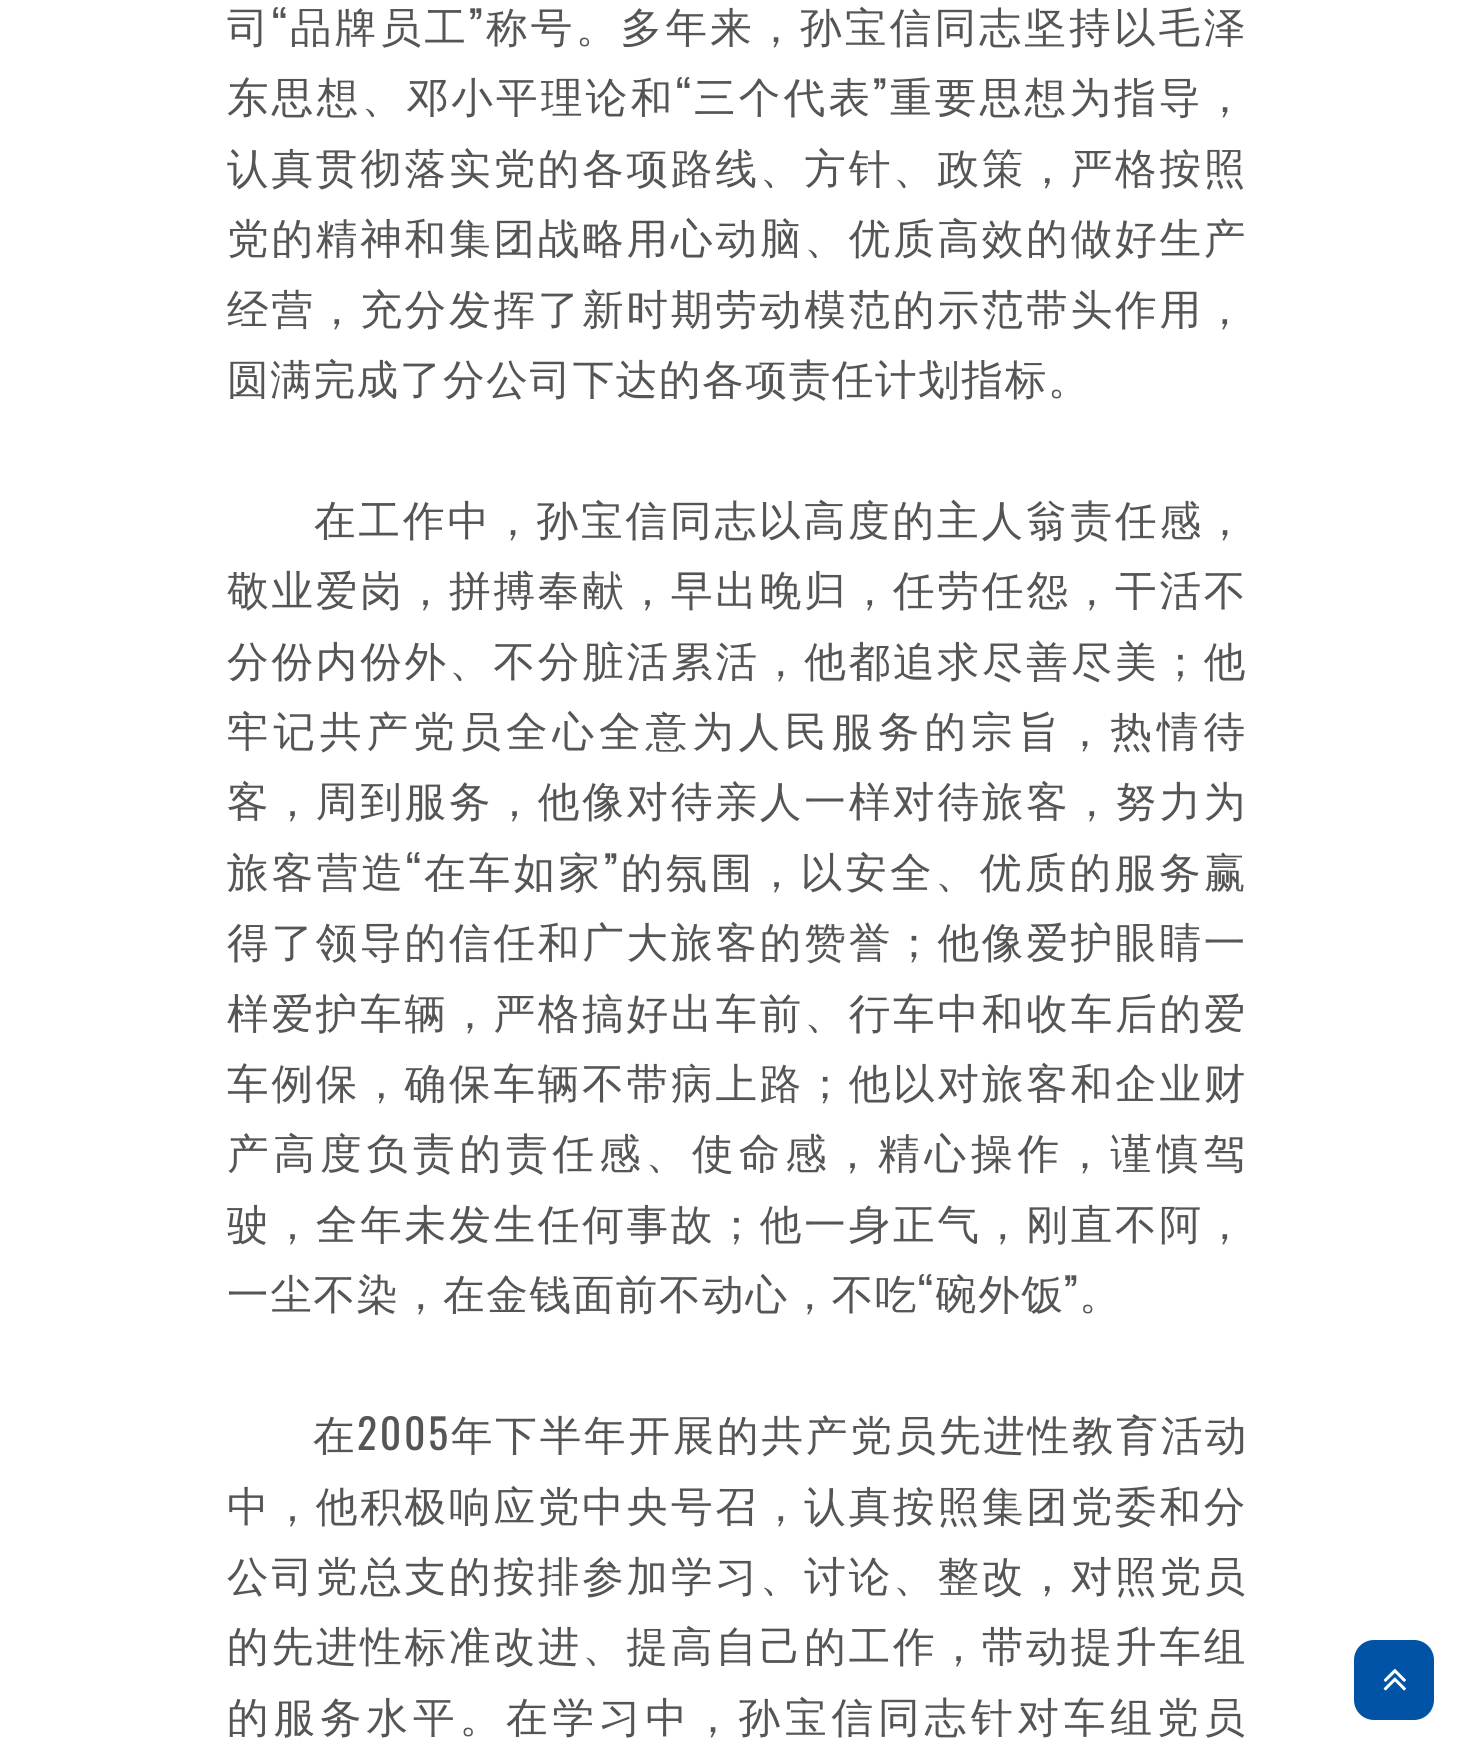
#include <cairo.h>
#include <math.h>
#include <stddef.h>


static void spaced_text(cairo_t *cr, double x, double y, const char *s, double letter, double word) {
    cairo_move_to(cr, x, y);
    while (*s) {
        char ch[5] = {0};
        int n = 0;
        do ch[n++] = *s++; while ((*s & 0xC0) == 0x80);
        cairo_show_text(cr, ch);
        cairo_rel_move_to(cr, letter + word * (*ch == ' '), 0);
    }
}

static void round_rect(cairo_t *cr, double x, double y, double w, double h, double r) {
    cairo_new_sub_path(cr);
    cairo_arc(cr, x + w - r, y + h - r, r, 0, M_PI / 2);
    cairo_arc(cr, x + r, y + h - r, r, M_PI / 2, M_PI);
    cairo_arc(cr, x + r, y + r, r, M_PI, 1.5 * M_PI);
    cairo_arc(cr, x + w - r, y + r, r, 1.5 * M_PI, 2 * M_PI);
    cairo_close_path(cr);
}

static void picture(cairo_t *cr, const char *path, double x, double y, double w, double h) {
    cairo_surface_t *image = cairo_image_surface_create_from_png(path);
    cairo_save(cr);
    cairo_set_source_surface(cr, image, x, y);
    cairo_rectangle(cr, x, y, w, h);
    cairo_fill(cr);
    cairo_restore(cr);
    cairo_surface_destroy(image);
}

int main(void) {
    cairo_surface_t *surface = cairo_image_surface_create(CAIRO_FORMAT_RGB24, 1474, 1753);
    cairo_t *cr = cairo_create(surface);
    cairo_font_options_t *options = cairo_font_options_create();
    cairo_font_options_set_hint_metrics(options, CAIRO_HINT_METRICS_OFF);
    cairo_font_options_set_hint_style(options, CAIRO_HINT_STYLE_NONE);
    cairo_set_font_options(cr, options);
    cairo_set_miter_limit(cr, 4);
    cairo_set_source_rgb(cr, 1, 1, 1);
    cairo_paint(cr);
    cairo_select_font_face(cr, "WenQuanYi Zen Hei Medium", CAIRO_FONT_SLANT_NORMAL, CAIRO_FONT_WEIGHT_NORMAL);
    cairo_set_font_size(cr, 41.6);
    cairo_set_source_rgb(cr, 0.333, 0.333, 0.333);
    spaced_text(cr, 227, 42, "司", 3.25, 0);
    cairo_select_font_face(cr, "Oswald", CAIRO_FONT_SLANT_NORMAL, CAIRO_FONT_WEIGHT_NORMAL);
    spaced_text(cr, 272, 42, "“", 3.25, 0);
    cairo_select_font_face(cr, "WenQuanYi Zen Hei Medium", CAIRO_FONT_SLANT_NORMAL, CAIRO_FONT_WEIGHT_NORMAL);
    spaced_text(cr, 290, 42, "品牌员工", 3.25, 0);
    cairo_select_font_face(cr, "Oswald", CAIRO_FONT_SLANT_NORMAL, CAIRO_FONT_WEIGHT_NORMAL);
    spaced_text(cr, 469, 42, "”", 3.25, 0);
    cairo_select_font_face(cr, "WenQuanYi Zen Hei Medium", CAIRO_FONT_SLANT_NORMAL, CAIRO_FONT_WEIGHT_NORMAL);
    spaced_text(cr, 486, 42, "称号。多年来，孙宝信同志坚持以毛泽", 3.25, 0);
    spaced_text(cr, 227, 112, "东思想、邓小平理论和", 3.25, 0);
    cairo_select_font_face(cr, "Oswald", CAIRO_FONT_SLANT_NORMAL, CAIRO_FONT_WEIGHT_NORMAL);
    spaced_text(cr, 676, 112, "“", 3.25, 0);
    cairo_select_font_face(cr, "WenQuanYi Zen Hei Medium", CAIRO_FONT_SLANT_NORMAL, CAIRO_FONT_WEIGHT_NORMAL);
    spaced_text(cr, 694, 112, "三个代表", 3.25, 0);
    cairo_select_font_face(cr, "Oswald", CAIRO_FONT_SLANT_NORMAL, CAIRO_FONT_WEIGHT_NORMAL);
    spaced_text(cr, 873, 112, "”", 3.25, 0);
    cairo_select_font_face(cr, "WenQuanYi Zen Hei Medium", CAIRO_FONT_SLANT_NORMAL, CAIRO_FONT_WEIGHT_NORMAL);
    spaced_text(cr, 890, 112, "重要思想为指导，", 3.25, 0);
    spaced_text(cr, 227, 183, "认真贯彻落实党的各项路线、方针、政策，严格按照", 2.8, 0);
    spaced_text(cr, 227, 253, "党的精神和集团战略用心动脑、优质高效的做好生产", 2.8, 0);
    spaced_text(cr, 227, 324, "经营，充分发挥了新时期劳动模范的示范带头作用，", 2.8, 0);
    spaced_text(cr, 227, 394, "圆满完成了分公司下达的各项责任计划指标。", 1.6, 0);
    spaced_text(cr, 314, 535, "在工作中，孙宝信同志以高度的主人翁责任感，", 2.9, 0);
    spaced_text(cr, 227, 605, "敬业爱岗，拼搏奉献，早出晚归，任劳任怨，干活不", 2.8, 0);
    spaced_text(cr, 227, 676, "分份内份外、不分脏活累活，他都追求尽善尽美；他", 2.8, 0);
    spaced_text(cr, 227, 746, "牢记共产党员全心全意为人民服务的宗旨，热情待", 4.9, 0);
    spaced_text(cr, 227, 816, "客，周到服务，他像对待亲人一样对待旅客，努力为", 2.8, 0);
    spaced_text(cr, 227, 887, "旅客营造", 3.25, 0);
    cairo_select_font_face(cr, "Oswald", CAIRO_FONT_SLANT_NORMAL, CAIRO_FONT_WEIGHT_NORMAL);
    spaced_text(cr, 406, 887, "“", 3.25, 0);
    cairo_select_font_face(cr, "WenQuanYi Zen Hei Medium", CAIRO_FONT_SLANT_NORMAL, CAIRO_FONT_WEIGHT_NORMAL);
    spaced_text(cr, 424, 887, "在车如家", 3.25, 0);
    cairo_select_font_face(cr, "Oswald", CAIRO_FONT_SLANT_NORMAL, CAIRO_FONT_WEIGHT_NORMAL);
    spaced_text(cr, 604, 887, "”", 3.25, 0);
    cairo_select_font_face(cr, "WenQuanYi Zen Hei Medium", CAIRO_FONT_SLANT_NORMAL, CAIRO_FONT_WEIGHT_NORMAL);
    spaced_text(cr, 621, 887, "的氛围，以安全、优质的服务赢", 3.25, 0);
    spaced_text(cr, 227, 957, "得了领导的信任和广大旅客的赞誉；他像爱护眼睛一", 2.8, 0);
    spaced_text(cr, 227, 1028, "样爱护车辆，严格搞好出车前、行车中和收车后的爱", 2.8, 0);
    spaced_text(cr, 227, 1098, "车例保，确保车辆不带病上路；他以对旅客和企业财", 2.8, 0);
    spaced_text(cr, 227, 1168, "产高度负责的责任感、使命感，精心操作，谨慎驾", 4.9, 0);
    spaced_text(cr, 227, 1239, "驶，全年未发生任何事故；他一身正气，刚直不阿，", 2.8, 0);
    spaced_text(cr, 227, 1309, "一尘不染，在金钱面前不动心，不吃", 1.6, 0);
    cairo_select_font_face(cr, "Oswald", CAIRO_FONT_SLANT_NORMAL, CAIRO_FONT_WEIGHT_NORMAL);
    spaced_text(cr, 918, 1309, "“", 1.6, 0);
    cairo_select_font_face(cr, "WenQuanYi Zen Hei Medium", CAIRO_FONT_SLANT_NORMAL, CAIRO_FONT_WEIGHT_NORMAL);
    spaced_text(cr, 935, 1309, "碗外饭", 1.6, 0);
    cairo_select_font_face(cr, "Oswald", CAIRO_FONT_SLANT_NORMAL, CAIRO_FONT_WEIGHT_NORMAL);
    spaced_text(cr, 1064, 1309, "”", 1.6, 0);
    cairo_select_font_face(cr, "WenQuanYi Zen Hei Medium", CAIRO_FONT_SLANT_NORMAL, CAIRO_FONT_WEIGHT_NORMAL);
    spaced_text(cr, 1079, 1309, "。", 1.6, 0);
    spaced_text(cr, 313, 1450, "在", 2.75, 0);
    cairo_select_font_face(cr, "Oswald", CAIRO_FONT_SLANT_NORMAL, CAIRO_FONT_WEIGHT_NORMAL);
    spaced_text(cr, 357, 1450, "2005", 2.75, 0);
    cairo_select_font_face(cr, "WenQuanYi Zen Hei Medium", CAIRO_FONT_SLANT_NORMAL, CAIRO_FONT_WEIGHT_NORMAL);
    spaced_text(cr, 451, 1450, "年下半年开展的共产党员先进性教育活动", 2.75, 0);
    spaced_text(cr, 227, 1521, "中，他积极响应党中央号召，认真按照集团党委和分", 2.8, 0);
    spaced_text(cr, 227, 1591, "公司党总支的按排参加学习、讨论、整改，对照党员", 2.8, 0);
    spaced_text(cr, 227, 1661, "的先进性标准改进、提高自己的工作，带动提升车组", 2.8, 0);
    spaced_text(cr, 227, 1732, "的服务水平。在学习中，孙宝信同志针对车组党员", 4.9, 0);
    cairo_set_source_rgb(cr, 0.004, 0.325, 0.647);
    round_rect(cr, 1354, 1640, 80, 80, 20);
    cairo_fill(cr);
    picture(cr, "img1.png", 1383, 1668, 23, 23);
    cairo_surface_write_to_png(surface, "page.png");
    cairo_font_options_destroy(options);
    cairo_destroy(cr);
    cairo_surface_destroy(surface);
    return 0;
}
